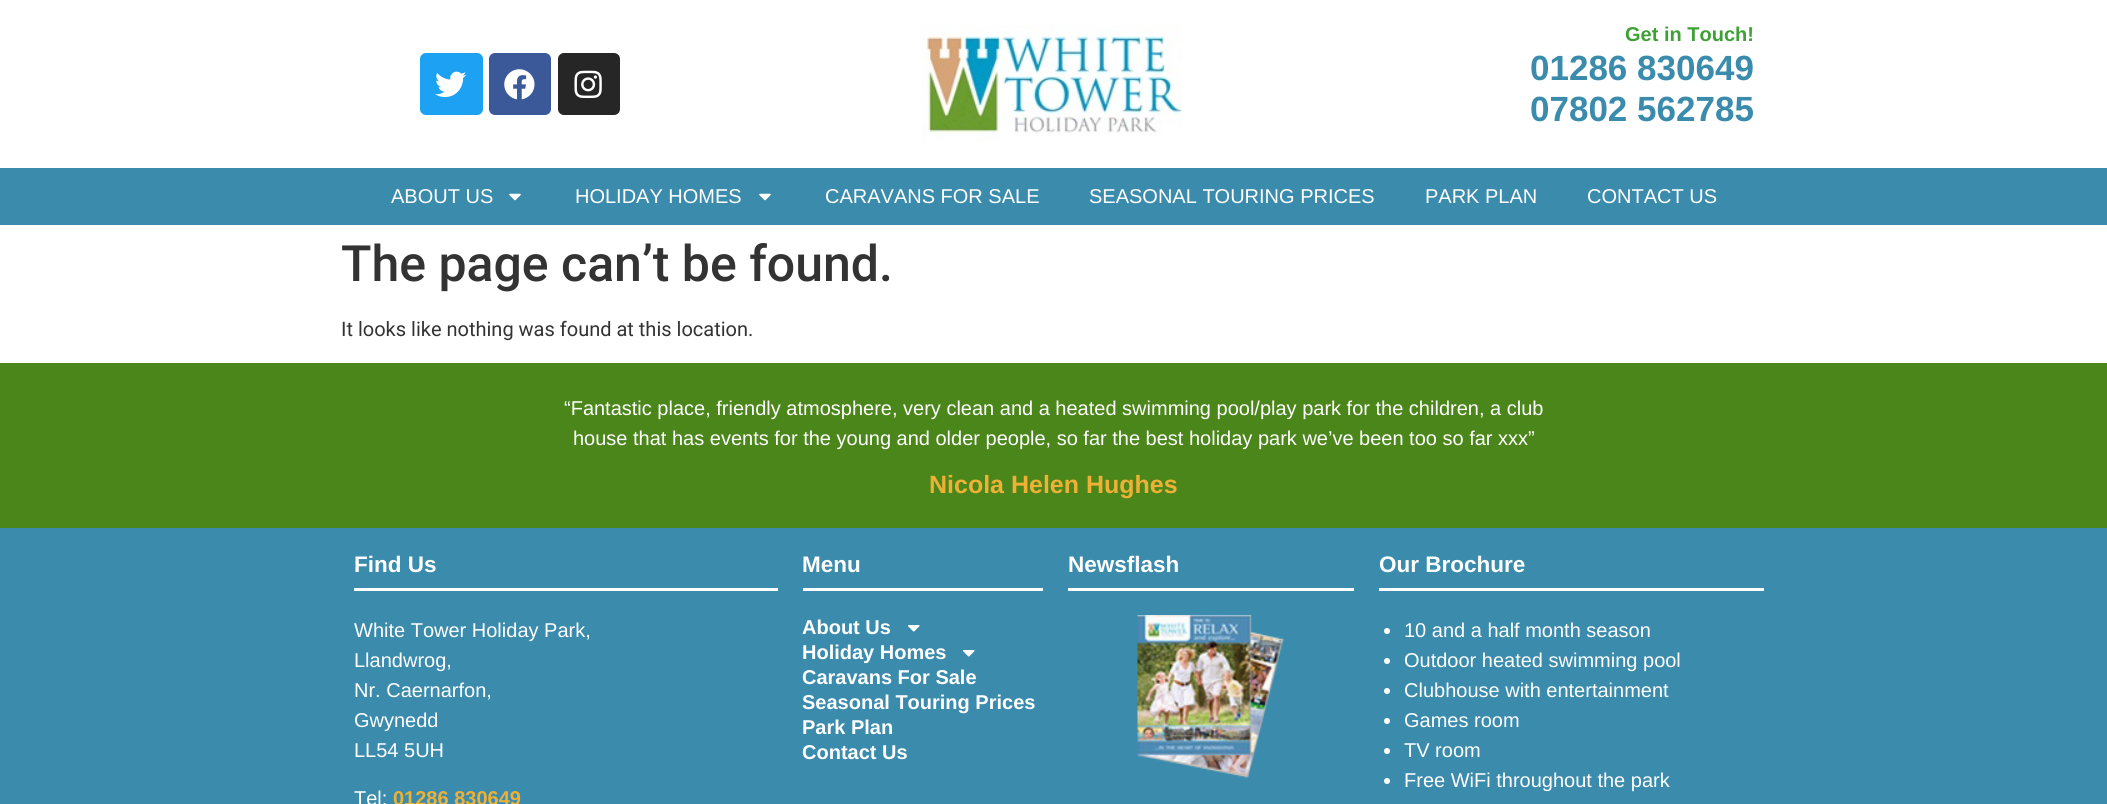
#include <cairo.h>
#include <math.h>
#include <stddef.h>


static void round_rect(cairo_t *cr, double x, double y, double w, double h, double r) {
    cairo_new_sub_path(cr);
    cairo_arc(cr, x + w - r, y + h - r, r, 0, M_PI / 2);
    cairo_arc(cr, x + r, y + h - r, r, M_PI / 2, M_PI);
    cairo_arc(cr, x + r, y + r, r, M_PI, 1.5 * M_PI);
    cairo_arc(cr, x + w - r, y + r, r, 1.5 * M_PI, 2 * M_PI);
    cairo_close_path(cr);
}

static void picture(cairo_t *cr, const char *path, double x, double y, double w, double h) {
    cairo_surface_t *image = cairo_image_surface_create_from_png(path);
    cairo_save(cr);
    cairo_set_source_surface(cr, image, x, y);
    cairo_rectangle(cr, x, y, w, h);
    cairo_fill(cr);
    cairo_restore(cr);
    cairo_surface_destroy(image);
}

int main(void) {
    cairo_surface_t *surface = cairo_image_surface_create(CAIRO_FORMAT_RGB24, 2107, 804);
    cairo_t *cr = cairo_create(surface);
    cairo_font_options_t *options = cairo_font_options_create();
    cairo_font_options_set_hint_metrics(options, CAIRO_HINT_METRICS_OFF);
    cairo_font_options_set_hint_style(options, CAIRO_HINT_STYLE_NONE);
    cairo_set_font_options(cr, options);
    cairo_set_miter_limit(cr, 4);
    cairo_set_source_rgb(cr, 1, 1, 1);
    cairo_paint(cr);
    cairo_set_source_rgb(cr, 0.114, 0.631, 0.949);
    round_rect(cr, 420, 53, 63, 62, 6);
    cairo_fill(cr);
    picture(cr, "img1.png", 435, 71, 31, 27);
    cairo_set_source_rgb(cr, 0.231, 0.349, 0.596);
    round_rect(cr, 489, 53, 62, 62, 6);
    cairo_fill(cr);
    picture(cr, "img2.png", 504, 69, 31, 31);
    cairo_set_source_rgb(cr, 0.149, 0.149, 0.149);
    round_rect(cr, 558, 53, 62, 62, 6);
    cairo_fill(cr);
    picture(cr, "img3.png", 574, 70, 28, 29);
    picture(cr, "img4.png", 921, 25, 261, 117);
    cairo_select_font_face(cr, "Liberation Sans", CAIRO_FONT_SLANT_NORMAL, CAIRO_FONT_WEIGHT_BOLD);
    cairo_set_font_size(cr, 20);
    cairo_set_source_rgb(cr, 0.247, 0.627, 0.212);
    cairo_move_to(cr, 1625, 41);
    cairo_show_text(cr, "Get in Touch!");
    cairo_set_font_size(cr, 35);
    cairo_set_source_rgb(cr, 0.231, 0.545, 0.678);
    cairo_move_to(cr, 1530, 80);
    cairo_show_text(cr, "01286 830649");
    cairo_move_to(cr, 1530, 121);
    cairo_show_text(cr, "07802 562785");
    cairo_rectangle(cr, 0, 168, 2107, 57);
    cairo_fill(cr);
    cairo_select_font_face(cr, "Liberation Sans", CAIRO_FONT_SLANT_NORMAL, CAIRO_FONT_WEIGHT_NORMAL);
    cairo_set_font_size(cr, 20);
    cairo_set_source_rgb(cr, 1, 1, 1);
    cairo_move_to(cr, 391, 203);
    cairo_show_text(cr, "ABOUT US");
    picture(cr, "img5.png", 509, 193, 12, 8);
    cairo_move_to(cr, 575, 203);
    cairo_show_text(cr, "HOLIDAY HOMES");
    picture(cr, "img5.png", 759, 193, 12, 8);
    cairo_move_to(cr, 825, 203);
    cairo_show_text(cr, "CARAVANS FOR SALE");
    cairo_move_to(cr, 1089, 203);
    cairo_show_text(cr, "SEASONAL TOURING PRICES");
    cairo_move_to(cr, 1425, 203);
    cairo_show_text(cr, "PARK PLAN");
    cairo_move_to(cr, 1587, 203);
    cairo_show_text(cr, "CONTACT US");
    cairo_select_font_face(cr, "Roboto Medium", CAIRO_FONT_SLANT_NORMAL, CAIRO_FONT_WEIGHT_NORMAL);
    cairo_set_font_size(cr, 50);
    cairo_set_source_rgb(cr, 0.2, 0.2, 0.2);
    cairo_move_to(cr, 341, 281);
    cairo_show_text(cr, "The page can’t be found.");
    cairo_select_font_face(cr, "Roboto", CAIRO_FONT_SLANT_NORMAL, CAIRO_FONT_WEIGHT_NORMAL);
    cairo_set_font_size(cr, 20);
    cairo_move_to(cr, 341, 336);
    cairo_show_text(cr, "It looks like nothing was found at this location.");
    cairo_set_source_rgb(cr, 0.294, 0.525, 0.106);
    cairo_rectangle(cr, 0, 363, 2107, 165);
    cairo_fill(cr);
    cairo_select_font_face(cr, "Liberation Sans", CAIRO_FONT_SLANT_NORMAL, CAIRO_FONT_WEIGHT_NORMAL);
    cairo_set_source_rgb(cr, 1, 1, 1);
    cairo_move_to(cr, 564, 415);
    cairo_show_text(cr, "“Fantastic place, friendly atmosphere, very clean and a heated swimming pool/play park for the children, a club");
    cairo_move_to(cr, 573, 445);
    cairo_show_text(cr, "house that has events for the young and older people, so far the best holiday park we’ve been too so far xxx”");
    cairo_select_font_face(cr, "Liberation Sans", CAIRO_FONT_SLANT_NORMAL, CAIRO_FONT_WEIGHT_BOLD);
    cairo_set_font_size(cr, 25);
    cairo_set_source_rgb(cr, 0.933, 0.694, 0.208);
    cairo_move_to(cr, 929, 493);
    cairo_show_text(cr, "Nicola Helen Hughes");
    cairo_set_source_rgb(cr, 0.231, 0.545, 0.678);
    cairo_rectangle(cr, 0, 528, 2107, 276);
    cairo_fill(cr);
    cairo_set_source_rgb(cr, 1, 1, 1);
    cairo_rectangle(cr, 354, 588, 424, 3);
    cairo_fill(cr);
    cairo_set_font_size(cr, 22.5);
    cairo_move_to(cr, 354, 572);
    cairo_show_text(cr, "Find Us");
    cairo_select_font_face(cr, "Liberation Sans", CAIRO_FONT_SLANT_NORMAL, CAIRO_FONT_WEIGHT_NORMAL);
    cairo_set_font_size(cr, 20);
    cairo_move_to(cr, 354, 637);
    cairo_show_text(cr, "White Tower Holiday Park,");
    cairo_move_to(cr, 354, 667);
    cairo_show_text(cr, "Llandwrog,");
    cairo_move_to(cr, 354, 697);
    cairo_show_text(cr, "Nr. Caernarfon,");
    cairo_move_to(cr, 354, 727);
    cairo_show_text(cr, "Gwynedd");
    cairo_move_to(cr, 354, 757);
    cairo_show_text(cr, "LL54 5UH");
    cairo_move_to(cr, 354, 805);
    cairo_show_text(cr, "Tel:");
    cairo_select_font_face(cr, "Liberation Sans", CAIRO_FONT_SLANT_NORMAL, CAIRO_FONT_WEIGHT_BOLD);
    cairo_set_source_rgb(cr, 0.933, 0.694, 0.208);
    cairo_move_to(cr, 393, 805);
    cairo_show_text(cr, "01286 830649");
    cairo_set_source_rgb(cr, 1, 1, 1);
    cairo_rectangle(cr, 803, 588, 240, 3);
    cairo_fill(cr);
    cairo_set_font_size(cr, 22.5);
    cairo_move_to(cr, 802, 572);
    cairo_show_text(cr, "Menu");
    cairo_set_font_size(cr, 20);
    cairo_move_to(cr, 802, 634);
    cairo_show_text(cr, "About Us");
    picture(cr, "img6.png", 908, 625, 12, 7);
    cairo_move_to(cr, 802, 659);
    cairo_show_text(cr, "Holiday Homes");
    picture(cr, "img6.png", 963, 650, 12, 7);
    cairo_move_to(cr, 802, 684);
    cairo_show_text(cr, "Caravans For Sale");
    cairo_move_to(cr, 802, 709);
    cairo_show_text(cr, "Seasonal Touring Prices");
    cairo_move_to(cr, 802, 734);
    cairo_show_text(cr, "Park Plan");
    cairo_move_to(cr, 802, 759);
    cairo_show_text(cr, "Contact Us");
    cairo_rectangle(cr, 1068, 588, 286, 3);
    cairo_fill(cr);
    cairo_set_font_size(cr, 22.5);
    cairo_move_to(cr, 1068, 572);
    cairo_show_text(cr, "Newsflash");
    picture(cr, "img7.png", 1137, 615, 147, 163);
    cairo_rectangle(cr, 1379, 588, 385, 3);
    cairo_fill(cr);
    cairo_move_to(cr, 1379, 572);
    cairo_show_text(cr, "Our Brochure");
    cairo_new_path(cr);
    cairo_arc(cr, 1387, 631, 3, 0, 2 * M_PI);
    cairo_fill(cr);
    cairo_select_font_face(cr, "Liberation Sans", CAIRO_FONT_SLANT_NORMAL, CAIRO_FONT_WEIGHT_NORMAL);
    cairo_set_font_size(cr, 20);
    cairo_move_to(cr, 1404, 637);
    cairo_show_text(cr, "10 and a half month season");
    cairo_new_path(cr);
    cairo_arc(cr, 1387, 661, 3, 0, 2 * M_PI);
    cairo_fill(cr);
    cairo_move_to(cr, 1404, 667);
    cairo_show_text(cr, "Outdoor heated swimming pool");
    cairo_new_path(cr);
    cairo_arc(cr, 1387, 691, 3, 0, 2 * M_PI);
    cairo_fill(cr);
    cairo_move_to(cr, 1404, 697);
    cairo_show_text(cr, "Clubhouse with entertainment");
    cairo_new_path(cr);
    cairo_arc(cr, 1387, 721, 3, 0, 2 * M_PI);
    cairo_fill(cr);
    cairo_move_to(cr, 1404, 727);
    cairo_show_text(cr, "Games room");
    cairo_new_path(cr);
    cairo_arc(cr, 1387, 751, 3, 0, 2 * M_PI);
    cairo_fill(cr);
    cairo_move_to(cr, 1404, 757);
    cairo_show_text(cr, "TV room");
    cairo_new_path(cr);
    cairo_arc(cr, 1387, 781, 3, 0, 2 * M_PI);
    cairo_fill(cr);
    cairo_move_to(cr, 1404, 787);
    cairo_show_text(cr, "Free WiFi throughout the park");
    cairo_surface_write_to_png(surface, "page.png");
    cairo_font_options_destroy(options);
    cairo_destroy(cr);
    cairo_surface_destroy(surface);
    return 0;
}
